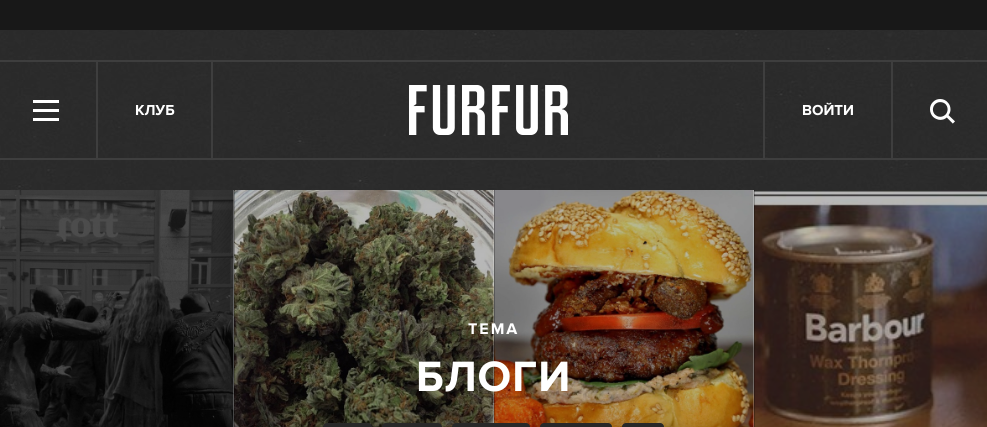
#include <cairo.h>
#include <math.h>
#include <stddef.h>


static void spaced_text(cairo_t *cr, double x, double y, const char *s, double letter, double word) {
    cairo_move_to(cr, x, y);
    while (*s) {
        char ch[5] = {0};
        int n = 0;
        do ch[n++] = *s++; while ((*s & 0xC0) == 0x80);
        cairo_show_text(cr, ch);
        cairo_rel_move_to(cr, letter + word * (*ch == ' '), 0);
    }
}

static void round_rect(cairo_t *cr, double x, double y, double w, double h, double r) {
    cairo_new_sub_path(cr);
    cairo_arc(cr, x + w - r, y + h - r, r, 0, M_PI / 2);
    cairo_arc(cr, x + r, y + h - r, r, M_PI / 2, M_PI);
    cairo_arc(cr, x + r, y + r, r, M_PI, 1.5 * M_PI);
    cairo_arc(cr, x + w - r, y + r, r, 1.5 * M_PI, 2 * M_PI);
    cairo_close_path(cr);
}

static void picture(cairo_t *cr, const char *path, double x, double y, double w, double h) {
    cairo_surface_t *image = cairo_image_surface_create_from_png(path);
    cairo_save(cr);
    cairo_set_source_surface(cr, image, x, y);
    cairo_rectangle(cr, x, y, w, h);
    cairo_fill(cr);
    cairo_restore(cr);
    cairo_surface_destroy(image);
}

int main(void) {
    cairo_surface_t *surface = cairo_image_surface_create(CAIRO_FORMAT_RGB24, 987, 427);
    cairo_t *cr = cairo_create(surface);
    cairo_font_options_t *options = cairo_font_options_create();
    cairo_font_options_set_hint_metrics(options, CAIRO_HINT_METRICS_OFF);
    cairo_font_options_set_hint_style(options, CAIRO_HINT_STYLE_NONE);
    cairo_set_font_options(cr, options);
    cairo_set_miter_limit(cr, 4);
    cairo_set_source_rgb(cr, 1, 1, 1);
    cairo_paint(cr);
    picture(cr, "img1.png", 0, 30, 987, 160);
    cairo_set_source_rgb(cr, 0.094, 0.094, 0.094);
    cairo_rectangle(cr, 0, 0, 987, 30);
    cairo_fill(cr);
    cairo_rectangle(cr, -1, 61, 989, 98);
    cairo_set_source_rgb(cr, 0.243, 0.243, 0.243);
    cairo_stroke(cr);
    cairo_rectangle(cr, 96, 62, 2, 96);
    cairo_fill(cr);
    cairo_set_source_rgb(cr, 1, 1, 1);
    cairo_rectangle(cr, 33, 109, 26, 3);
    cairo_fill(cr);
    cairo_rectangle(cr, 33, 100, 26, 3);
    cairo_fill(cr);
    cairo_rectangle(cr, 33, 118, 26, 3);
    cairo_fill(cr);
    cairo_set_source_rgb(cr, 0.243, 0.243, 0.243);
    cairo_rectangle(cr, 211, 62, 2, 96);
    cairo_fill(cr);
    cairo_select_font_face(cr, "Proxima Nova", CAIRO_FONT_SLANT_NORMAL, CAIRO_FONT_WEIGHT_BOLD);
    cairo_set_font_size(cr, 15);
    cairo_set_source_rgb(cr, 1, 1, 1);
    cairo_move_to(cr, 135, 115);
    cairo_show_text(cr, "КЛУБ");
    cairo_set_source_rgb(cr, 0.243, 0.243, 0.243);
    cairo_rectangle(cr, 763, 62, 2, 96);
    cairo_fill(cr);
    picture(cr, "img2.png", 409, 85, 159, 50);
    cairo_rectangle(cr, 891, 62, 2, 96);
    cairo_fill(cr);
    cairo_set_source_rgb(cr, 1, 1, 1);
    cairo_move_to(cr, 802, 115);
    cairo_show_text(cr, "ВОЙТИ");
    picture(cr, "img3.png", 930, 99, 25, 25);
    picture(cr, "img4.png", 0, 190, 234, 237);
    picture(cr, "img5.png", 234, 190, 260, 237);
    picture(cr, "img6.png", 494, 190, 260, 237);
    picture(cr, "img7.png", 754, 190, 233, 237);
    cairo_set_source_rgba(cr, 0, 0, 0, 0.28);
    cairo_rectangle(cr, 0, 190, 987, 237);
    cairo_fill(cr);
    cairo_set_source_rgba(cr, 1, 1, 1, 0.25);
    cairo_rectangle(cr, 233, 190, 1, 237);
    cairo_fill(cr);
    cairo_set_source_rgba(cr, 0, 0, 0, 0.25);
    cairo_rectangle(cr, 234, 190, 1, 237);
    cairo_fill(cr);
    cairo_set_source_rgba(cr, 1, 1, 1, 0.25);
    cairo_rectangle(cr, 493, 190, 1, 237);
    cairo_fill(cr);
    cairo_set_source_rgba(cr, 0, 0, 0, 0.25);
    cairo_rectangle(cr, 494, 190, 1, 237);
    cairo_fill(cr);
    cairo_set_source_rgba(cr, 1, 1, 1, 0.25);
    cairo_rectangle(cr, 753, 190, 1, 237);
    cairo_fill(cr);
    cairo_set_source_rgba(cr, 0, 0, 0, 0.25);
    cairo_rectangle(cr, 754, 190, 1, 237);
    cairo_fill(cr);
    cairo_set_font_size(cr, 16);
    cairo_set_source_rgb(cr, 1, 1, 1);
    spaced_text(cr, 468, 334, "ТЕМА", 2, 0);
    cairo_set_font_size(cr, 44);
    spaced_text(cr, 416, 391, "БЛОГИ", 1, 0);
    cairo_set_source_rgb(cr, 0.157, 0.157, 0.157);
    round_rect(cr, 323, 423, 49, 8, 4);
    cairo_fill(cr);
    round_rect(cr, 382, 423, 60, 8, 4);
    cairo_fill(cr);
    round_rect(cr, 452, 423, 78, 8, 4);
    cairo_fill(cr);
    round_rect(cr, 540, 423, 72, 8, 4);
    cairo_fill(cr);
    round_rect(cr, 622, 423, 42, 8, 4);
    cairo_fill(cr);
    cairo_surface_write_to_png(surface, "page.png");
    cairo_font_options_destroy(options);
    cairo_destroy(cr);
    cairo_surface_destroy(surface);
    return 0;
}
